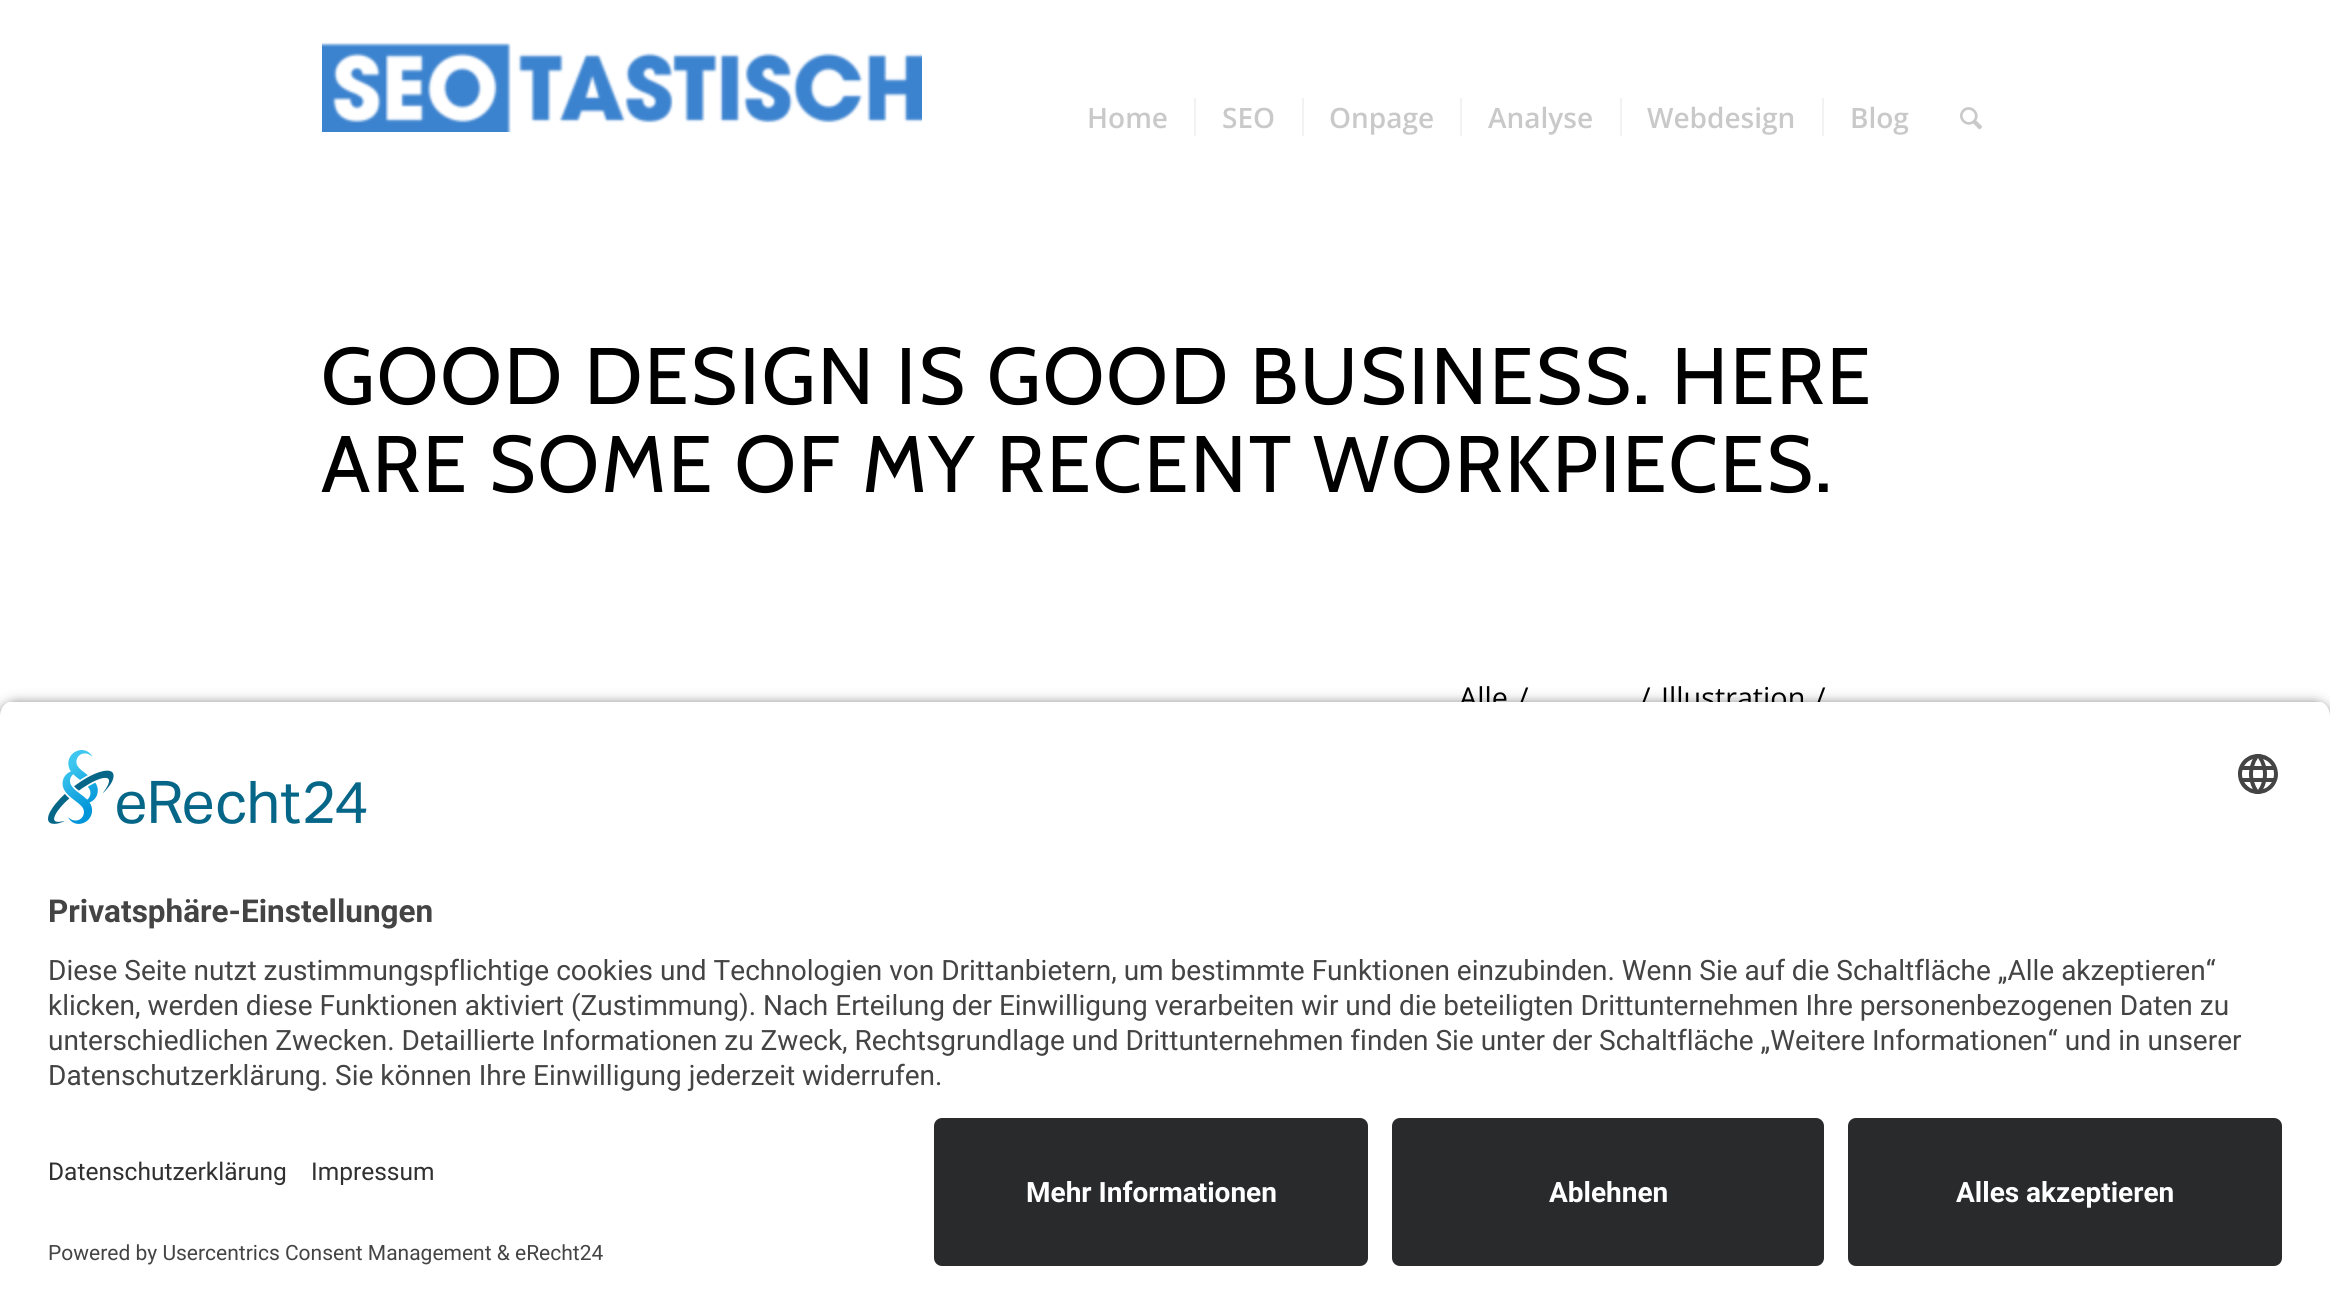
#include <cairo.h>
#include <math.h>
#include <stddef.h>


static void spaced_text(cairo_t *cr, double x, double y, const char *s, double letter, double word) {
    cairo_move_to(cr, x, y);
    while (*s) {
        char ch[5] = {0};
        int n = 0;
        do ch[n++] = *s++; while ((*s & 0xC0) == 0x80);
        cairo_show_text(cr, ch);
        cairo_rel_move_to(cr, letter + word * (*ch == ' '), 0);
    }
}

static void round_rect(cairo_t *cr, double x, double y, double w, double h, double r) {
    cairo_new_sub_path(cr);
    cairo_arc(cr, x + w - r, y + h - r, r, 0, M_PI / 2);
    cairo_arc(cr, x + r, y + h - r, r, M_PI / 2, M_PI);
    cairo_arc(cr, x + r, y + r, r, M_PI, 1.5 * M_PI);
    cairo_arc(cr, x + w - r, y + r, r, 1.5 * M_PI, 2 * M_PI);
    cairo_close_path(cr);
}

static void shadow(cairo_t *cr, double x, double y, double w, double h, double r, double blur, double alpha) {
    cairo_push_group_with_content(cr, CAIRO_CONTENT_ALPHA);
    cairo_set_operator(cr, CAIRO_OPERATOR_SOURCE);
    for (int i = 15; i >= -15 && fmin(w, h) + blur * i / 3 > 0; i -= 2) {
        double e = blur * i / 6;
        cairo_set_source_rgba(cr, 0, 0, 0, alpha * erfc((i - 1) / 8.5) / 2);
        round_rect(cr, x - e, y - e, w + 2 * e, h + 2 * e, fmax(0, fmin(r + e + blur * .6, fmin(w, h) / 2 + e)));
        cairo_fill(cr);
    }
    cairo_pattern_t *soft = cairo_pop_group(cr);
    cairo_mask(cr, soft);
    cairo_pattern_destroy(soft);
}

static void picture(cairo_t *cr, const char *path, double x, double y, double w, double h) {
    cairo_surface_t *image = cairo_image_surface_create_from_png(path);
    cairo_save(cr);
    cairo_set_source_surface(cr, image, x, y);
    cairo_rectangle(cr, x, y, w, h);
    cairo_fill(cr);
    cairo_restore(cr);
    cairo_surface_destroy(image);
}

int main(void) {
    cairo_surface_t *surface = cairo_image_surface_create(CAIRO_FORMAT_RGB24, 2330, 1314);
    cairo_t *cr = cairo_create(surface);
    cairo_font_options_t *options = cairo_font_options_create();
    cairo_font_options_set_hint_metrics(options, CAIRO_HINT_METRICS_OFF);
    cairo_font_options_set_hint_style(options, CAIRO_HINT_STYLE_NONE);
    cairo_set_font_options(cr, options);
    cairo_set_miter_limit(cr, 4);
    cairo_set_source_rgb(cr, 1, 1, 1);
    cairo_paint(cr);
    picture(cr, "img1.png", 322, 42, 600, 90);
    cairo_select_font_face(cr, "Open Sans SemiBold", CAIRO_FONT_SLANT_NORMAL, CAIRO_FONT_WEIGHT_NORMAL);
    cairo_set_font_size(cr, 28);
    cairo_set_source_rgb(cr, 0.788, 0.788, 0.788);
    cairo_move_to(cr, 1087, 128);
    cairo_show_text(cr, "Home");
    cairo_move_to(cr, 1222, 128);
    cairo_show_text(cr, "SEO");
    cairo_set_source_rgb(cr, 0.949, 0.949, 0.949);
    cairo_rectangle(cr, 1194, 98, 2, 38);
    cairo_fill(cr);
    cairo_set_source_rgb(cr, 0.788, 0.788, 0.788);
    cairo_move_to(cr, 1329, 128);
    cairo_show_text(cr, "Onpage");
    cairo_set_source_rgb(cr, 0.949, 0.949, 0.949);
    cairo_rectangle(cr, 1302, 98, 2, 38);
    cairo_fill(cr);
    cairo_set_source_rgb(cr, 0.788, 0.788, 0.788);
    cairo_move_to(cr, 1488, 128);
    cairo_show_text(cr, "Analyse");
    cairo_set_source_rgb(cr, 0.949, 0.949, 0.949);
    cairo_rectangle(cr, 1460, 98, 2, 38);
    cairo_fill(cr);
    cairo_set_source_rgb(cr, 0.788, 0.788, 0.788);
    cairo_move_to(cr, 1647, 128);
    cairo_show_text(cr, "Webdesign");
    cairo_set_source_rgb(cr, 0.949, 0.949, 0.949);
    cairo_rectangle(cr, 1620, 98, 2, 38);
    cairo_fill(cr);
    cairo_set_source_rgb(cr, 0.788, 0.788, 0.788);
    cairo_move_to(cr, 1850, 128);
    cairo_show_text(cr, "Blog");
    cairo_set_source_rgb(cr, 0.949, 0.949, 0.949);
    cairo_rectangle(cr, 1822, 98, 2, 38);
    cairo_fill(cr);
    picture(cr, "img2.png", 1960, 107, 22, 23);
    cairo_select_font_face(cr, "Cabin", CAIRO_FONT_SLANT_NORMAL, CAIRO_FONT_WEIGHT_NORMAL);
    cairo_set_font_size(cr, 80);
    cairo_set_source_rgb(cr, 0, 0, 0);
    spaced_text(cr, 321, 404, "GOOD DESIGN IS GOOD BUSINESS. HERE", 2, 0);
    spaced_text(cr, 321, 492, "ARE SOME OF MY RECENT WORKPIECES.", 2, 0);
    cairo_select_font_face(cr, "Open Sans", CAIRO_FONT_SLANT_NORMAL, CAIRO_FONT_WEIGHT_NORMAL);
    cairo_set_font_size(cr, 28.75);
    cairo_move_to(cr, 1459, 708);
    cairo_show_text(cr, "Alle");
    cairo_move_to(cr, 1518, 708);
    cairo_show_text(cr, "/");
    cairo_move_to(cr, 1640, 708);
    cairo_show_text(cr, "/");
    cairo_move_to(cr, 1661, 708);
    cairo_show_text(cr, "Illustration");
    cairo_move_to(cr, 1815, 708);
    cairo_show_text(cr, "/");
    cairo_set_source_rgb(cr, 0, 0, 0);
    shadow(cr, 0, 706, 2330, 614, 16, 7, 0.8);
    cairo_save(cr);
    cairo_new_path(cr);
    cairo_move_to(cr, 16, 700);
    cairo_line_to(cr, 2314, 700);
    cairo_curve_to(cr, 2323, 700, 2330, 707, 2330, 716);
    cairo_line_to(cr, 2330, 1102);
    cairo_line_to(cr, 0, 1102);
    cairo_line_to(cr, 0, 716);
    cairo_curve_to(cr, 0, 707, 7, 700, 16, 700);
    cairo_close_path(cr);
    cairo_clip(cr);
    cairo_set_source_rgb(cr, 1, 1, 1);
    cairo_rectangle(cr, 0, 702, 2330, 400);
    cairo_fill(cr);
    cairo_restore(cr);
    picture(cr, "img3.png", 48, 750, 319, 74);
    picture(cr, "img4.png", 2238, 754, 40, 40);
    cairo_select_font_face(cr, "Roboto", CAIRO_FONT_SLANT_NORMAL, CAIRO_FONT_WEIGHT_BOLD);
    cairo_set_font_size(cr, 31.5);
    cairo_set_source_rgb(cr, 0.267, 0.267, 0.267);
    cairo_move_to(cr, 48, 922);
    cairo_show_text(cr, "Privatsphäre-Einstellungen");
    cairo_select_font_face(cr, "Roboto", CAIRO_FONT_SLANT_NORMAL, CAIRO_FONT_WEIGHT_NORMAL);
    cairo_set_font_size(cr, 28);
    cairo_move_to(cr, 48, 980);
    cairo_show_text(cr, "Diese Seite nutzt zustimmungspflichtige cookies und Technologien von Drittanbietern, um bestimmte Funktionen einzubinden. Wenn Sie auf die Schaltfläche „Alle akzeptieren“");
    cairo_move_to(cr, 48, 1015);
    cairo_show_text(cr, "klicken, werden diese Funktionen aktiviert (Zustimmung). Nach Erteilung der Einwilligung verarbeiten wir und die beteiligten Drittunternehmen Ihre personenbezogenen Daten zu");
    cairo_move_to(cr, 48, 1050);
    cairo_show_text(cr, "unterschiedlichen Zwecken. Detaillierte Informationen zu Zweck, Rechtsgrundlage und Drittunternehmen finden Sie unter der Schaltfläche „Weitere Informationen“ und in unserer");
    cairo_move_to(cr, 48, 1085);
    cairo_show_text(cr, "Datenschutzerklärung. Sie können Ihre Einwilligung jederzeit widerrufen.");
    cairo_set_source_rgb(cr, 1, 1, 1);
    cairo_rectangle(cr, 0, 1102, 2330, 212);
    cairo_fill(cr);
    cairo_set_font_size(cr, 24.5);
    cairo_set_source_rgb(cr, 0.188, 0.188, 0.188);
    cairo_move_to(cr, 48, 1180);
    cairo_show_text(cr, "Datenschutzerklärung");
    cairo_move_to(cr, 311, 1180);
    cairo_show_text(cr, "Impressum");
    cairo_set_font_size(cr, 21);
    cairo_set_source_rgb(cr, 0.267, 0.267, 0.267);
    cairo_move_to(cr, 48, 1260);
    cairo_show_text(cr, "Powered by Usercentrics Consent Management & eRecht24");
    cairo_set_source_rgb(cr, 0.161, 0.165, 0.169);
    round_rect(cr, 934, 1118, 434, 148, 8);
    cairo_fill(cr);
    cairo_select_font_face(cr, "Roboto", CAIRO_FONT_SLANT_NORMAL, CAIRO_FONT_WEIGHT_BOLD);
    cairo_set_font_size(cr, 28);
    cairo_set_source_rgb(cr, 1, 1, 1);
    cairo_move_to(cr, 1026, 1202);
    cairo_show_text(cr, "Mehr Informationen");
    cairo_set_source_rgb(cr, 0.161, 0.165, 0.169);
    round_rect(cr, 1392, 1118, 432, 148, 8);
    cairo_fill(cr);
    cairo_set_source_rgb(cr, 1, 1, 1);
    cairo_move_to(cr, 1549, 1202);
    cairo_show_text(cr, "Ablehnen");
    cairo_set_source_rgb(cr, 0.161, 0.165, 0.169);
    round_rect(cr, 1848, 1118, 434, 148, 8);
    cairo_fill(cr);
    cairo_set_source_rgb(cr, 1, 1, 1);
    cairo_move_to(cr, 1956, 1202);
    cairo_show_text(cr, "Alles akzeptieren");
    cairo_surface_write_to_png(surface, "page.png");
    cairo_font_options_destroy(options);
    cairo_destroy(cr);
    cairo_surface_destroy(surface);
    return 0;
}
